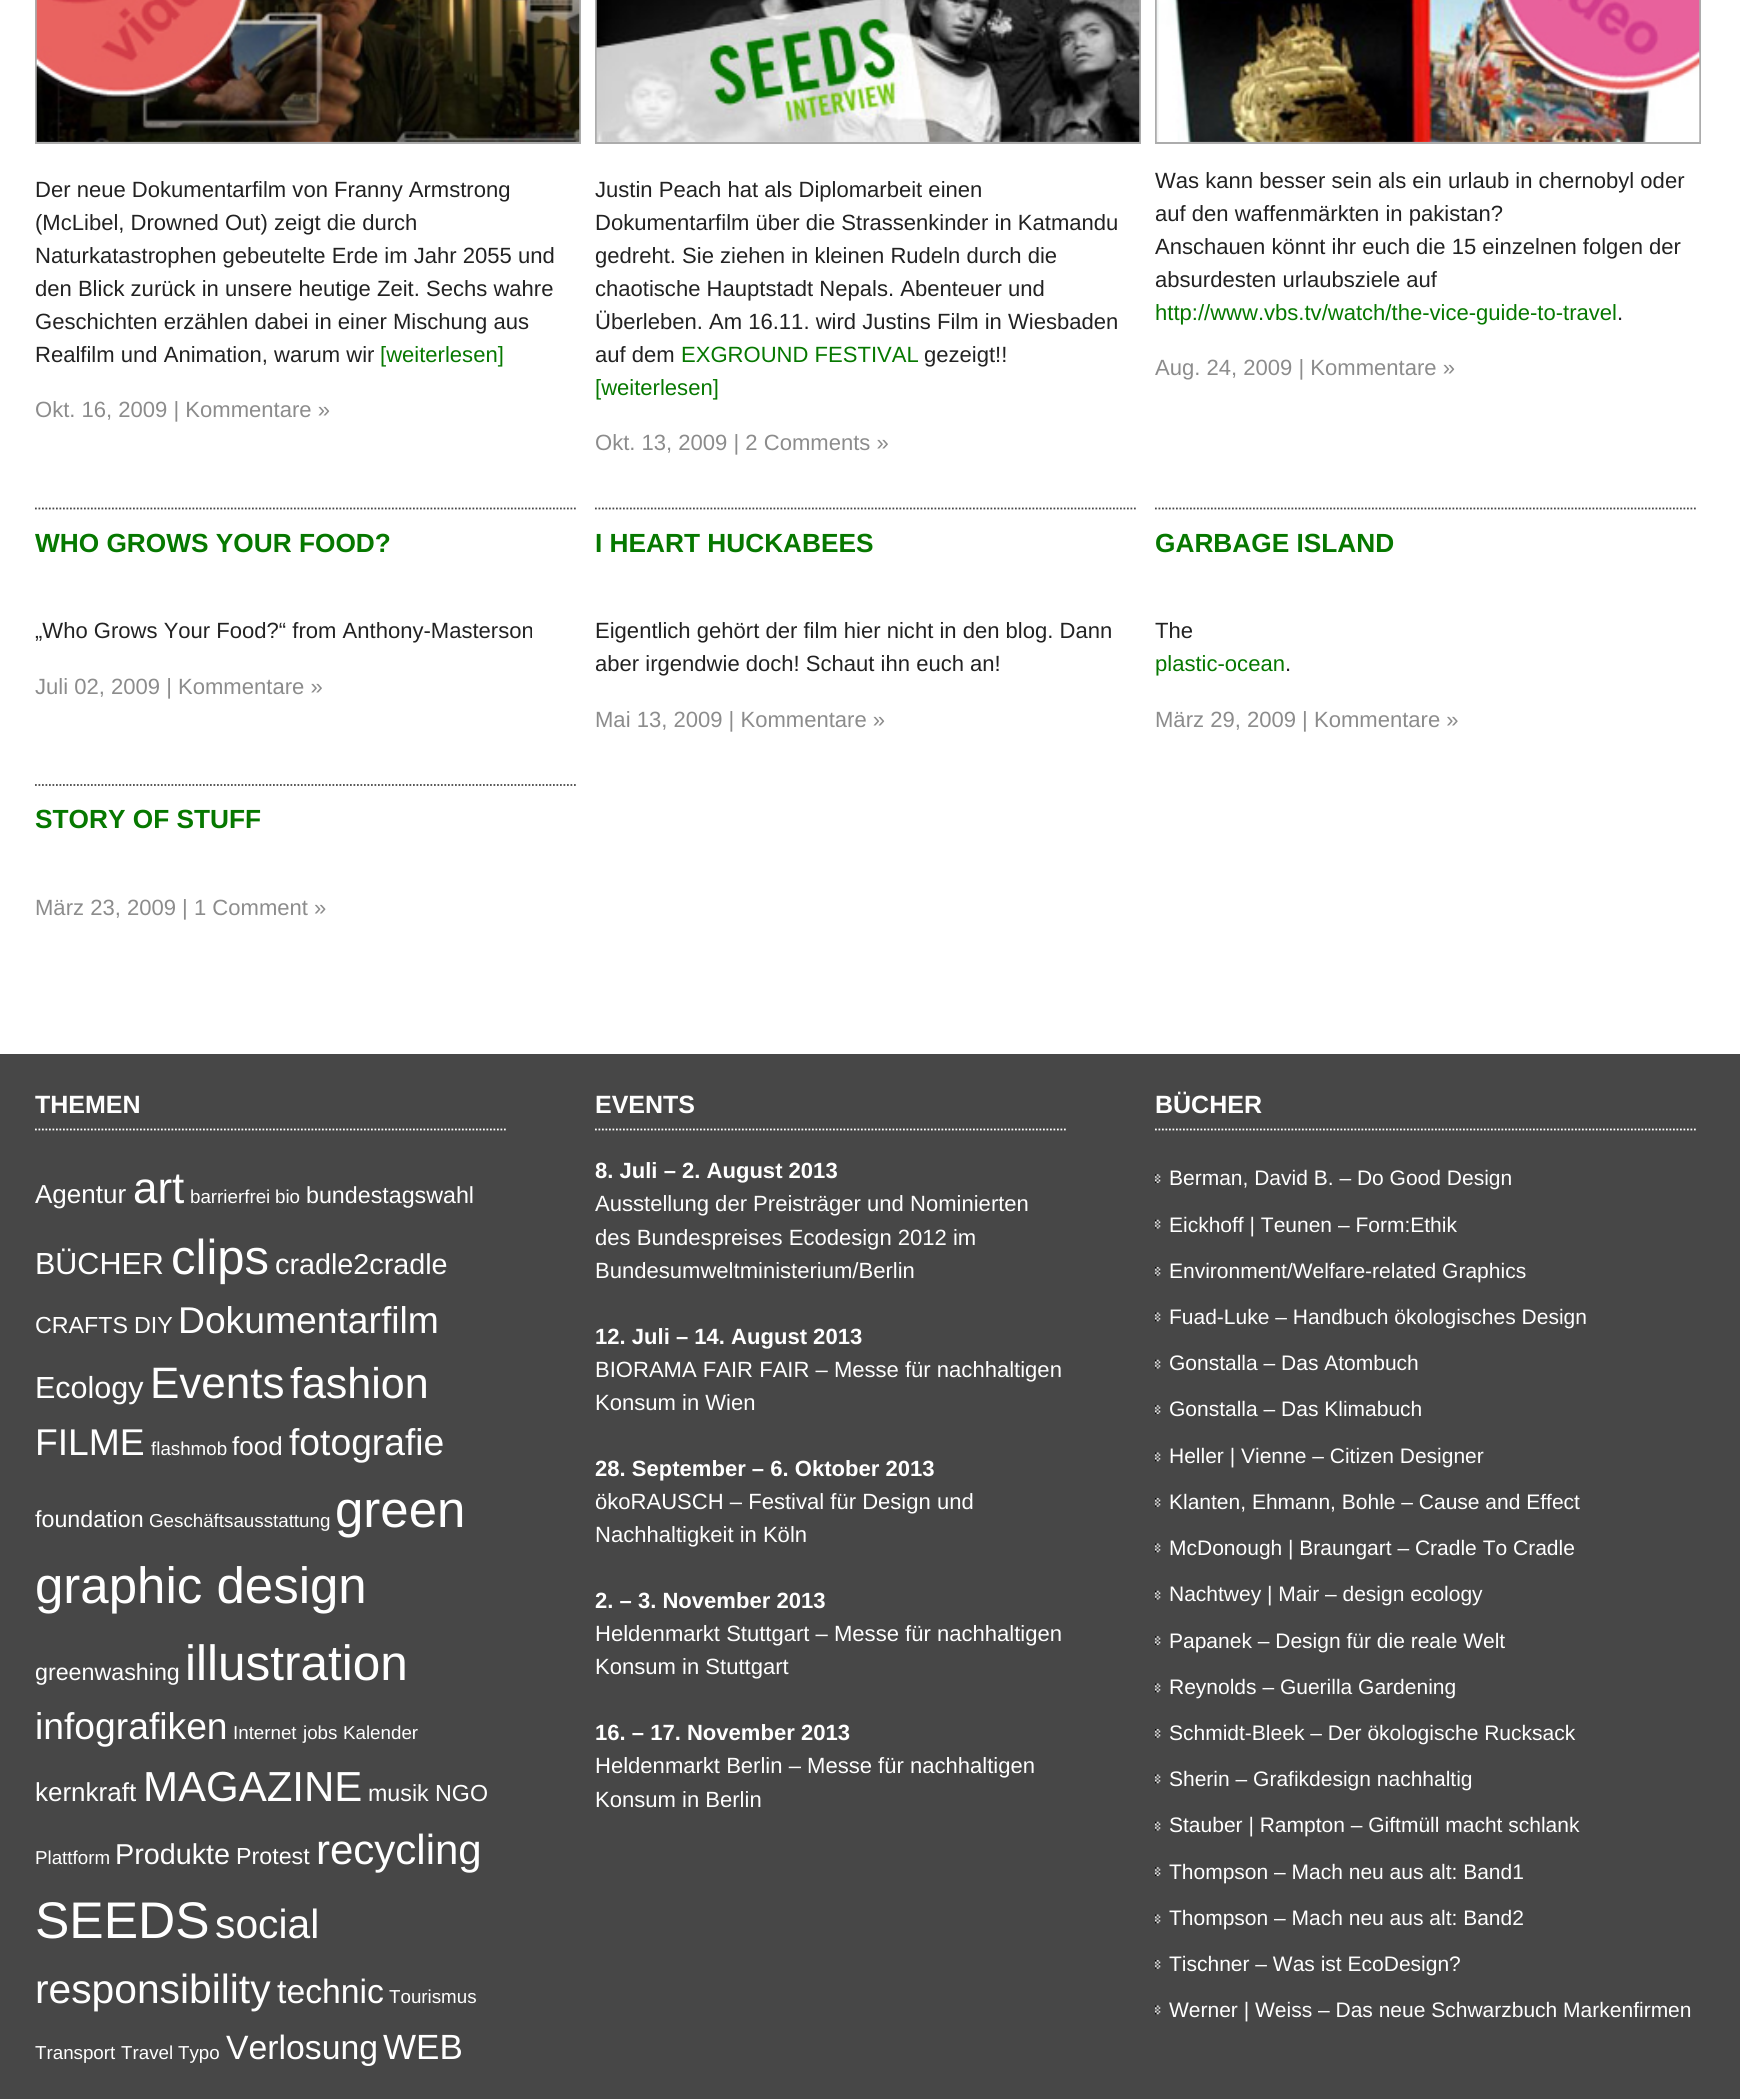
#include <cairo.h>
#include <math.h>
#include <stddef.h>


static void picture(cairo_t *cr, const char *path, double x, double y, double w, double h) {
    cairo_surface_t *image = cairo_image_surface_create_from_png(path);
    cairo_save(cr);
    cairo_set_source_surface(cr, image, x, y);
    cairo_rectangle(cr, x, y, w, h);
    cairo_fill(cr);
    cairo_restore(cr);
    cairo_surface_destroy(image);
}

int main(void) {
    cairo_surface_t *surface = cairo_image_surface_create(CAIRO_FORMAT_RGB24, 1740, 2099);
    cairo_t *cr = cairo_create(surface);
    cairo_font_options_t *options = cairo_font_options_create();
    cairo_font_options_set_hint_metrics(options, CAIRO_HINT_METRICS_OFF);
    cairo_font_options_set_hint_style(options, CAIRO_HINT_STYLE_NONE);
    cairo_set_font_options(cr, options);
    cairo_set_miter_limit(cr, 4);
    cairo_set_source_rgb(cr, 1, 1, 1);
    cairo_paint(cr);
    picture(cr, "img2.png", 37, 141, 542, 1);
    cairo_rectangle(cr, 36, -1, 544, 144);
    cairo_set_source_rgb(cr, 0.675, 0.675, 0.675);
    cairo_stroke(cr);
    picture(cr, "img1.png", 36, 0, 544, 142);
    cairo_select_font_face(cr, "Liberation Sans", CAIRO_FONT_SLANT_NORMAL, CAIRO_FONT_WEIGHT_NORMAL);
    cairo_set_font_size(cr, 22.05);
    cairo_set_source_rgb(cr, 0.133, 0.133, 0.133);
    cairo_move_to(cr, 35, 197);
    cairo_show_text(cr, "Der neue Dokumentarfilm von Franny Armstrong");
    cairo_move_to(cr, 35, 230);
    cairo_show_text(cr, "(McLibel, Drowned Out) zeigt die durch");
    cairo_move_to(cr, 35, 263);
    cairo_show_text(cr, "Naturkatastrophen gebeutelte Erde im Jahr 2055 und");
    cairo_move_to(cr, 35, 296);
    cairo_show_text(cr, "den Blick zurück in unsere heutige Zeit. Sechs wahre");
    cairo_move_to(cr, 35, 329);
    cairo_show_text(cr, "Geschichten erzählen dabei in einer Mischung aus");
    cairo_move_to(cr, 35, 362);
    cairo_show_text(cr, "Realfilm und Animation, warum wir");
    cairo_set_source_rgb(cr, 0.024, 0.471, 0);
    cairo_move_to(cr, 380, 362);
    cairo_show_text(cr, "[weiterlesen]");
    cairo_set_source_rgb(cr, 0.549, 0.549, 0.549);
    cairo_move_to(cr, 35, 417);
    cairo_show_text(cr, "Okt. 16, 2009 | Kommentare »");
    picture(cr, "img4.png", 597, 141, 542, 1);
    cairo_rectangle(cr, 596, -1, 544, 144);
    cairo_set_source_rgb(cr, 0.675, 0.675, 0.675);
    cairo_stroke(cr);
    picture(cr, "img3.png", 596, 0, 544, 142);
    cairo_set_source_rgb(cr, 0.133, 0.133, 0.133);
    cairo_move_to(cr, 595, 197);
    cairo_show_text(cr, "Justin Peach hat als Diplomarbeit einen");
    cairo_move_to(cr, 595, 230);
    cairo_show_text(cr, "Dokumentarfilm über die Strassenkinder in Katmandu");
    cairo_move_to(cr, 595, 263);
    cairo_show_text(cr, "gedreht. Sie ziehen in kleinen Rudeln durch die");
    cairo_move_to(cr, 595, 296);
    cairo_show_text(cr, "chaotische Hauptstadt Nepals. Abenteuer und");
    cairo_move_to(cr, 595, 329);
    cairo_show_text(cr, "Überleben. Am 16.11. wird Justins Film in Wiesbaden");
    cairo_move_to(cr, 595, 362);
    cairo_show_text(cr, "auf dem");
    cairo_set_source_rgb(cr, 0.024, 0.471, 0);
    cairo_move_to(cr, 681, 362);
    cairo_show_text(cr, "EXGROUND FESTIVAL");
    cairo_set_source_rgb(cr, 0.133, 0.133, 0.133);
    cairo_move_to(cr, 924, 362);
    cairo_show_text(cr, "gezeigt!!");
    cairo_set_source_rgb(cr, 0.024, 0.471, 0);
    cairo_move_to(cr, 595, 395);
    cairo_show_text(cr, "[weiterlesen]");
    cairo_set_source_rgb(cr, 0.549, 0.549, 0.549);
    cairo_move_to(cr, 595, 450);
    cairo_show_text(cr, "Okt. 13, 2009 | 2 Comments »");
    picture(cr, "img5.png", 1157, 141, 542, 1);
    cairo_rectangle(cr, 1156, -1, 544, 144);
    cairo_set_source_rgb(cr, 0.675, 0.675, 0.675);
    cairo_stroke(cr);
    picture(cr, "img6.png", 1156, 0, 544, 142);
    cairo_set_source_rgb(cr, 0.133, 0.133, 0.133);
    cairo_move_to(cr, 1155, 188);
    cairo_show_text(cr, "Was kann besser sein als ein urlaub in chernobyl oder");
    cairo_move_to(cr, 1155, 221);
    cairo_show_text(cr, "auf den waffenmärkten in pakistan?");
    cairo_move_to(cr, 1155, 254);
    cairo_show_text(cr, "Anschauen könnt ihr euch die 15 einzelnen folgen der");
    cairo_move_to(cr, 1155, 287);
    cairo_show_text(cr, "absurdesten urlaubsziele auf");
    cairo_set_source_rgb(cr, 0.024, 0.471, 0);
    cairo_move_to(cr, 1155, 320);
    cairo_show_text(cr, "http://www.vbs.tv/watch/the-vice-guide-to-travel");
    cairo_set_source_rgb(cr, 0.133, 0.133, 0.133);
    cairo_move_to(cr, 1617, 320);
    cairo_show_text(cr, ".");
    cairo_set_source_rgb(cr, 0.549, 0.549, 0.549);
    cairo_move_to(cr, 1155, 375);
    cairo_show_text(cr, "Aug. 24, 2009 | Kommentare »");
    cairo_new_path(cr);
    cairo_move_to(cr, 35, 508.5);
    cairo_line_to(cr, 577.5, 508.5);
    cairo_set_source_rgb(cr, 0.278, 0.278, 0.278);
    cairo_set_line_width(cr, 1.8);
    cairo_set_dash(cr, (double[]){1.75, 1.75}, 2, 0);
    cairo_stroke(cr);
    cairo_select_font_face(cr, "Liberation Sans", CAIRO_FONT_SLANT_NORMAL, CAIRO_FONT_WEIGHT_BOLD);
    cairo_set_font_size(cr, 26.25);
    cairo_set_source_rgb(cr, 0.024, 0.471, 0);
    cairo_move_to(cr, 35, 552);
    cairo_show_text(cr, "WHO GROWS YOUR FOOD?");
    cairo_select_font_face(cr, "Liberation Sans", CAIRO_FONT_SLANT_NORMAL, CAIRO_FONT_WEIGHT_NORMAL);
    cairo_set_font_size(cr, 22.05);
    cairo_set_source_rgb(cr, 0.133, 0.133, 0.133);
    cairo_move_to(cr, 35, 638);
    cairo_show_text(cr, "„Who Grows Your Food?“ from Anthony-Masterson");
    cairo_set_source_rgb(cr, 0.549, 0.549, 0.549);
    cairo_move_to(cr, 35, 694);
    cairo_show_text(cr, "Juli 02, 2009 | Kommentare »");
    cairo_new_path(cr);
    cairo_move_to(cr, 595, 508.5);
    cairo_line_to(cr, 1137.5, 508.5);
    cairo_set_source_rgb(cr, 0.278, 0.278, 0.278);
    cairo_stroke(cr);
    cairo_select_font_face(cr, "Liberation Sans", CAIRO_FONT_SLANT_NORMAL, CAIRO_FONT_WEIGHT_BOLD);
    cairo_set_font_size(cr, 26.25);
    cairo_set_source_rgb(cr, 0.024, 0.471, 0);
    cairo_move_to(cr, 595, 552);
    cairo_show_text(cr, "I HEART HUCKABEES");
    cairo_select_font_face(cr, "Liberation Sans", CAIRO_FONT_SLANT_NORMAL, CAIRO_FONT_WEIGHT_NORMAL);
    cairo_set_font_size(cr, 22.05);
    cairo_set_source_rgb(cr, 0.133, 0.133, 0.133);
    cairo_move_to(cr, 595, 638);
    cairo_show_text(cr, "Eigentlich gehört der film hier nicht in den blog. Dann");
    cairo_move_to(cr, 595, 671);
    cairo_show_text(cr, "aber irgendwie doch! Schaut ihn euch an!");
    cairo_set_source_rgb(cr, 0.549, 0.549, 0.549);
    cairo_move_to(cr, 595, 727);
    cairo_show_text(cr, "Mai 13, 2009 | Kommentare »");
    cairo_new_path(cr);
    cairo_move_to(cr, 1155, 508.5);
    cairo_line_to(cr, 1697.5, 508.5);
    cairo_set_source_rgb(cr, 0.278, 0.278, 0.278);
    cairo_stroke(cr);
    cairo_select_font_face(cr, "Liberation Sans", CAIRO_FONT_SLANT_NORMAL, CAIRO_FONT_WEIGHT_BOLD);
    cairo_set_font_size(cr, 26.25);
    cairo_set_source_rgb(cr, 0.024, 0.471, 0);
    cairo_move_to(cr, 1155, 552);
    cairo_show_text(cr, "GARBAGE ISLAND");
    cairo_select_font_face(cr, "Liberation Sans", CAIRO_FONT_SLANT_NORMAL, CAIRO_FONT_WEIGHT_NORMAL);
    cairo_set_font_size(cr, 22.05);
    cairo_set_source_rgb(cr, 0.133, 0.133, 0.133);
    cairo_move_to(cr, 1155, 638);
    cairo_show_text(cr, "The");
    cairo_set_source_rgb(cr, 0.024, 0.471, 0);
    cairo_move_to(cr, 1155, 671);
    cairo_show_text(cr, "plastic-ocean");
    cairo_set_source_rgb(cr, 0.133, 0.133, 0.133);
    cairo_move_to(cr, 1285, 671);
    cairo_show_text(cr, ".");
    cairo_set_source_rgb(cr, 0.549, 0.549, 0.549);
    cairo_move_to(cr, 1155, 727);
    cairo_show_text(cr, "März 29, 2009 | Kommentare »");
    cairo_new_path(cr);
    cairo_move_to(cr, 35, 785);
    cairo_line_to(cr, 577.5, 785);
    cairo_set_source_rgb(cr, 0.278, 0.278, 0.278);
    cairo_stroke(cr);
    cairo_select_font_face(cr, "Liberation Sans", CAIRO_FONT_SLANT_NORMAL, CAIRO_FONT_WEIGHT_BOLD);
    cairo_set_font_size(cr, 26.25);
    cairo_set_source_rgb(cr, 0.024, 0.471, 0);
    cairo_move_to(cr, 35, 828);
    cairo_show_text(cr, "STORY OF STUFF");
    cairo_select_font_face(cr, "Liberation Sans", CAIRO_FONT_SLANT_NORMAL, CAIRO_FONT_WEIGHT_NORMAL);
    cairo_set_font_size(cr, 22.05);
    cairo_set_source_rgb(cr, 0.549, 0.549, 0.549);
    cairo_move_to(cr, 35, 915);
    cairo_show_text(cr, "März 23, 2009 | 1 Comment »");
    cairo_set_source_rgb(cr, 0.278, 0.278, 0.278);
    cairo_rectangle(cr, 0, 1054, 1740, 1045);
    cairo_fill(cr);
    cairo_new_path(cr);
    cairo_move_to(cr, 35, 1129.5);
    cairo_line_to(cr, 507.5, 1129.5);
    cairo_set_source_rgb(cr, 1, 1, 1);
    cairo_stroke(cr);
    cairo_select_font_face(cr, "Liberation Sans", CAIRO_FONT_SLANT_NORMAL, CAIRO_FONT_WEIGHT_BOLD);
    cairo_set_font_size(cr, 25);
    cairo_move_to(cr, 35, 1113);
    cairo_show_text(cr, "THEMEN");
    cairo_select_font_face(cr, "Liberation Sans", CAIRO_FONT_SLANT_NORMAL, CAIRO_FONT_WEIGHT_NORMAL);
    cairo_set_font_size(cr, 26);
    cairo_move_to(cr, 35, 1203);
    cairo_show_text(cr, "Agentur");
    cairo_set_font_size(cr, 44);
    cairo_move_to(cr, 133, 1203);
    cairo_show_text(cr, "art");
    cairo_set_font_size(cr, 18.75);
    cairo_move_to(cr, 190, 1203);
    cairo_show_text(cr, "barrierfrei");
    cairo_move_to(cr, 275, 1203);
    cairo_show_text(cr, "bio");
    cairo_set_font_size(cr, 23.25);
    cairo_move_to(cr, 306, 1203);
    cairo_show_text(cr, "bundestagswahl");
    cairo_set_font_size(cr, 30.5);
    cairo_move_to(cr, 35, 1274);
    cairo_show_text(cr, "BÜCHER");
    cairo_set_font_size(cr, 49);
    cairo_move_to(cr, 171, 1274);
    cairo_show_text(cr, "clips");
    cairo_set_font_size(cr, 28.75);
    cairo_move_to(cr, 275, 1274);
    cairo_show_text(cr, "cradle2cradle");
    cairo_set_font_size(cr, 23.25);
    cairo_move_to(cr, 35, 1333);
    cairo_show_text(cr, "CRAFTS");
    cairo_move_to(cr, 134, 1333);
    cairo_show_text(cr, "DIY");
    cairo_set_font_size(cr, 37.25);
    cairo_move_to(cr, 178, 1333);
    cairo_show_text(cr, "Dokumentarfilm");
    cairo_set_font_size(cr, 30.5);
    cairo_move_to(cr, 35, 1398);
    cairo_show_text(cr, "Ecology");
    cairo_set_font_size(cr, 44);
    cairo_move_to(cr, 150, 1398);
    cairo_show_text(cr, "Events");
    cairo_set_font_size(cr, 43);
    cairo_move_to(cr, 290, 1398);
    cairo_show_text(cr, "fashion");
    cairo_set_font_size(cr, 37.25);
    cairo_move_to(cr, 35, 1455);
    cairo_show_text(cr, "FILME");
    cairo_set_font_size(cr, 18.75);
    cairo_move_to(cr, 151, 1455);
    cairo_show_text(cr, "flashmob");
    cairo_set_font_size(cr, 26);
    cairo_move_to(cr, 232, 1455);
    cairo_show_text(cr, "food");
    cairo_set_font_size(cr, 37.25);
    cairo_move_to(cr, 289, 1455);
    cairo_show_text(cr, "fotografie");
    cairo_set_font_size(cr, 23.25);
    cairo_move_to(cr, 35, 1527);
    cairo_show_text(cr, "foundation");
    cairo_set_font_size(cr, 18.75);
    cairo_move_to(cr, 149, 1527);
    cairo_show_text(cr, "Geschäftsausstattung");
    cairo_set_font_size(cr, 51);
    cairo_move_to(cr, 335, 1527);
    cairo_show_text(cr, "green");
    cairo_move_to(cr, 35, 1603);
    cairo_show_text(cr, "graphic design");
    cairo_set_font_size(cr, 23.25);
    cairo_move_to(cr, 35, 1680);
    cairo_show_text(cr, "greenwashing");
    cairo_set_font_size(cr, 49.5);
    cairo_move_to(cr, 185, 1680);
    cairo_show_text(cr, "illustration");
    cairo_set_font_size(cr, 37.25);
    cairo_move_to(cr, 35, 1739);
    cairo_show_text(cr, "infografiken");
    cairo_set_font_size(cr, 18.75);
    cairo_move_to(cr, 233, 1739);
    cairo_show_text(cr, "Internet");
    cairo_move_to(cr, 303, 1739);
    cairo_show_text(cr, "jobs");
    cairo_move_to(cr, 343, 1739);
    cairo_show_text(cr, "Kalender");
    cairo_set_font_size(cr, 26);
    cairo_move_to(cr, 35, 1801);
    cairo_show_text(cr, "kernkraft");
    cairo_set_font_size(cr, 42);
    cairo_move_to(cr, 143, 1801);
    cairo_show_text(cr, "MAGAZINE");
    cairo_set_font_size(cr, 23.25);
    cairo_move_to(cr, 368, 1801);
    cairo_show_text(cr, "musik");
    cairo_move_to(cr, 435, 1801);
    cairo_show_text(cr, "NGO");
    cairo_set_font_size(cr, 18.75);
    cairo_move_to(cr, 35, 1864);
    cairo_show_text(cr, "Plattform");
    cairo_set_font_size(cr, 28.75);
    cairo_move_to(cr, 115, 1864);
    cairo_show_text(cr, "Produkte");
    cairo_set_font_size(cr, 23.25);
    cairo_move_to(cr, 236, 1864);
    cairo_show_text(cr, "Protest");
    cairo_set_font_size(cr, 42);
    cairo_move_to(cr, 316, 1864);
    cairo_show_text(cr, "recycling");
    cairo_set_font_size(cr, 51.5);
    cairo_move_to(cr, 35, 1938);
    cairo_show_text(cr, "SEEDS");
    cairo_set_font_size(cr, 40.75);
    cairo_move_to(cr, 215, 1938);
    cairo_show_text(cr, "social");
    cairo_move_to(cr, 35, 2003);
    cairo_show_text(cr, "responsibility");
    cairo_set_font_size(cr, 33.75);
    cairo_move_to(cr, 277, 2003);
    cairo_show_text(cr, "technic");
    cairo_set_font_size(cr, 18.75);
    cairo_move_to(cr, 389, 2003);
    cairo_show_text(cr, "Tourismus");
    cairo_move_to(cr, 35, 2059);
    cairo_show_text(cr, "Transport");
    cairo_move_to(cr, 121, 2059);
    cairo_show_text(cr, "Travel");
    cairo_move_to(cr, 178, 2059);
    cairo_show_text(cr, "Typo");
    cairo_set_font_size(cr, 33.75);
    cairo_move_to(cr, 226, 2059);
    cairo_show_text(cr, "Verlosung");
    cairo_set_font_size(cr, 35);
    cairo_move_to(cr, 383, 2059);
    cairo_show_text(cr, "WEB");
    cairo_new_path(cr);
    cairo_move_to(cr, 595, 1129.5);
    cairo_line_to(cr, 1067.5, 1129.5);
    cairo_stroke(cr);
    cairo_select_font_face(cr, "Liberation Sans", CAIRO_FONT_SLANT_NORMAL, CAIRO_FONT_WEIGHT_BOLD);
    cairo_set_font_size(cr, 25);
    cairo_move_to(cr, 595, 1113);
    cairo_show_text(cr, "EVENTS");
    cairo_set_font_size(cr, 22.05);
    cairo_move_to(cr, 595, 1178);
    cairo_show_text(cr, "8. Juli – 2. August 2013");
    cairo_select_font_face(cr, "Liberation Sans", CAIRO_FONT_SLANT_NORMAL, CAIRO_FONT_WEIGHT_NORMAL);
    cairo_move_to(cr, 595, 1211);
    cairo_show_text(cr, "Ausstellung der Preisträger und Nominierten");
    cairo_move_to(cr, 595, 1245);
    cairo_show_text(cr, "des Bundespreises Ecodesign 2012 im");
    cairo_move_to(cr, 595, 1278);
    cairo_show_text(cr, "Bundesumweltministerium/Berlin");
    cairo_select_font_face(cr, "Liberation Sans", CAIRO_FONT_SLANT_NORMAL, CAIRO_FONT_WEIGHT_BOLD);
    cairo_move_to(cr, 595, 1344);
    cairo_show_text(cr, "12. Juli – 14. August 2013");
    cairo_select_font_face(cr, "Liberation Sans", CAIRO_FONT_SLANT_NORMAL, CAIRO_FONT_WEIGHT_NORMAL);
    cairo_move_to(cr, 595, 1377);
    cairo_show_text(cr, "BIORAMA FAIR FAIR – Messe für nachhaltigen");
    cairo_move_to(cr, 595, 1410);
    cairo_show_text(cr, "Konsum in Wien");
    cairo_select_font_face(cr, "Liberation Sans", CAIRO_FONT_SLANT_NORMAL, CAIRO_FONT_WEIGHT_BOLD);
    cairo_move_to(cr, 595, 1476);
    cairo_show_text(cr, "28. September – 6. Oktober 2013");
    cairo_select_font_face(cr, "Liberation Sans", CAIRO_FONT_SLANT_NORMAL, CAIRO_FONT_WEIGHT_NORMAL);
    cairo_move_to(cr, 595, 1509);
    cairo_show_text(cr, "ökoRAUSCH – Festival für Design und");
    cairo_move_to(cr, 595, 1542);
    cairo_show_text(cr, "Nachhaltigkeit in Köln");
    cairo_select_font_face(cr, "Liberation Sans", CAIRO_FONT_SLANT_NORMAL, CAIRO_FONT_WEIGHT_BOLD);
    cairo_move_to(cr, 595, 1608);
    cairo_show_text(cr, "2. – 3. November 2013");
    cairo_select_font_face(cr, "Liberation Sans", CAIRO_FONT_SLANT_NORMAL, CAIRO_FONT_WEIGHT_NORMAL);
    cairo_move_to(cr, 595, 1641);
    cairo_show_text(cr, "Heldenmarkt Stuttgart – Messe für nachhaltigen");
    cairo_move_to(cr, 595, 1674);
    cairo_show_text(cr, "Konsum in Stuttgart");
    cairo_select_font_face(cr, "Liberation Sans", CAIRO_FONT_SLANT_NORMAL, CAIRO_FONT_WEIGHT_BOLD);
    cairo_move_to(cr, 595, 1740);
    cairo_show_text(cr, "16. – 17. November 2013");
    cairo_select_font_face(cr, "Liberation Sans", CAIRO_FONT_SLANT_NORMAL, CAIRO_FONT_WEIGHT_NORMAL);
    cairo_move_to(cr, 595, 1773);
    cairo_show_text(cr, "Heldenmarkt Berlin – Messe für nachhaltigen");
    cairo_move_to(cr, 595, 1807);
    cairo_show_text(cr, "Konsum in Berlin");
    cairo_new_path(cr);
    cairo_move_to(cr, 1155, 1129.5);
    cairo_line_to(cr, 1697.5, 1129.5);
    cairo_stroke(cr);
    cairo_select_font_face(cr, "Liberation Sans", CAIRO_FONT_SLANT_NORMAL, CAIRO_FONT_WEIGHT_BOLD);
    cairo_set_font_size(cr, 25);
    cairo_move_to(cr, 1155, 1113);
    cairo_show_text(cr, "BÜCHER");
    picture(cr, "img7.png", 1155, 1174, 6, 9);
    cairo_select_font_face(cr, "Liberation Sans", CAIRO_FONT_SLANT_NORMAL, CAIRO_FONT_WEIGHT_NORMAL);
    cairo_set_font_size(cr, 21);
    cairo_move_to(cr, 1169, 1185);
    cairo_show_text(cr, "Berman, David B. – Do Good Design");
    picture(cr, "img8.png", 1155, 1219, 6, 10);
    cairo_move_to(cr, 1169, 1232);
    cairo_show_text(cr, "Eickhoff | Teunen – Form:Ethik");
    picture(cr, "img9.png", 1155, 1267, 6, 9);
    cairo_move_to(cr, 1169, 1278);
    cairo_show_text(cr, "Environment/Welfare-related Graphics");
    picture(cr, "img10.png", 1155, 1312, 6, 10);
    cairo_move_to(cr, 1169, 1324);
    cairo_show_text(cr, "Fuad-Luke – Handbuch ökologisches Design");
    picture(cr, "img8.png", 1155, 1359, 6, 10);
    cairo_move_to(cr, 1169, 1370);
    cairo_show_text(cr, "Gonstalla – Das Atombuch");
    picture(cr, "img7.png", 1155, 1405, 6, 9);
    cairo_move_to(cr, 1169, 1416);
    cairo_show_text(cr, "Gonstalla – Das Klimabuch");
    picture(cr, "img10.png", 1155, 1452, 6, 10);
    cairo_move_to(cr, 1169, 1463);
    cairo_show_text(cr, "Heller | Vienne – Citizen Designer");
    picture(cr, "img9.png", 1155, 1498, 6, 9);
    cairo_move_to(cr, 1169, 1509);
    cairo_show_text(cr, "Klanten, Ehmann, Bohle – Cause and Effect");
    picture(cr, "img10.png", 1155, 1543, 6, 10);
    cairo_move_to(cr, 1169, 1555);
    cairo_show_text(cr, "McDonough | Braungart – Cradle To Cradle");
    picture(cr, "img8.png", 1155, 1590, 6, 10);
    cairo_move_to(cr, 1169, 1601);
    cairo_show_text(cr, "Nachtwey | Mair – design ecology");
    picture(cr, "img7.png", 1155, 1636, 6, 9);
    cairo_move_to(cr, 1169, 1648);
    cairo_show_text(cr, "Papanek – Design für die reale Welt");
    picture(cr, "img10.png", 1155, 1683, 6, 10);
    cairo_move_to(cr, 1169, 1694);
    cairo_show_text(cr, "Reynolds – Guerilla Gardening");
    picture(cr, "img9.png", 1155, 1729, 6, 9);
    cairo_move_to(cr, 1169, 1740);
    cairo_show_text(cr, "Schmidt-Bleek – Der ökologische Rucksack");
    picture(cr, "img10.png", 1155, 1774, 6, 10);
    cairo_move_to(cr, 1169, 1786);
    cairo_show_text(cr, "Sherin – Grafikdesign nachhaltig");
    picture(cr, "img8.png", 1155, 1821, 6, 10);
    cairo_move_to(cr, 1169, 1832);
    cairo_show_text(cr, "Stauber | Rampton – Giftmüll macht schlank");
    picture(cr, "img7.png", 1155, 1867, 6, 9);
    cairo_move_to(cr, 1169, 1879);
    cairo_show_text(cr, "Thompson – Mach neu aus alt: Band1");
    picture(cr, "img10.png", 1155, 1914, 6, 10);
    cairo_move_to(cr, 1169, 1925);
    cairo_show_text(cr, "Thompson – Mach neu aus alt: Band2");
    picture(cr, "img9.png", 1155, 1960, 6, 9);
    cairo_move_to(cr, 1169, 1971);
    cairo_show_text(cr, "Tischner – Was ist EcoDesign?");
    picture(cr, "img10.png", 1155, 2005, 6, 10);
    cairo_move_to(cr, 1169, 2017);
    cairo_show_text(cr, "Werner | Weiss – Das neue Schwarzbuch Markenfirmen");
    cairo_surface_write_to_png(surface, "page.png");
    cairo_font_options_destroy(options);
    cairo_destroy(cr);
    cairo_surface_destroy(surface);
    return 0;
}
